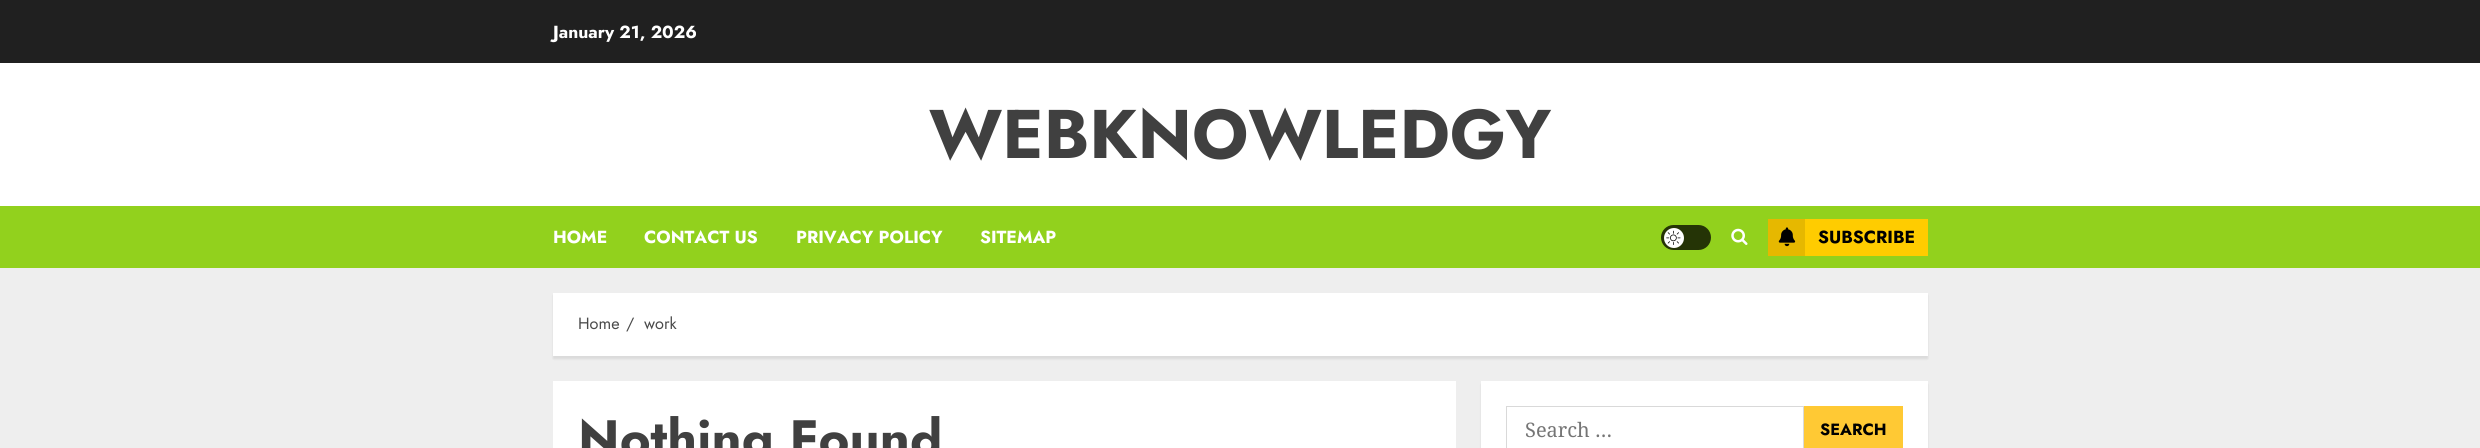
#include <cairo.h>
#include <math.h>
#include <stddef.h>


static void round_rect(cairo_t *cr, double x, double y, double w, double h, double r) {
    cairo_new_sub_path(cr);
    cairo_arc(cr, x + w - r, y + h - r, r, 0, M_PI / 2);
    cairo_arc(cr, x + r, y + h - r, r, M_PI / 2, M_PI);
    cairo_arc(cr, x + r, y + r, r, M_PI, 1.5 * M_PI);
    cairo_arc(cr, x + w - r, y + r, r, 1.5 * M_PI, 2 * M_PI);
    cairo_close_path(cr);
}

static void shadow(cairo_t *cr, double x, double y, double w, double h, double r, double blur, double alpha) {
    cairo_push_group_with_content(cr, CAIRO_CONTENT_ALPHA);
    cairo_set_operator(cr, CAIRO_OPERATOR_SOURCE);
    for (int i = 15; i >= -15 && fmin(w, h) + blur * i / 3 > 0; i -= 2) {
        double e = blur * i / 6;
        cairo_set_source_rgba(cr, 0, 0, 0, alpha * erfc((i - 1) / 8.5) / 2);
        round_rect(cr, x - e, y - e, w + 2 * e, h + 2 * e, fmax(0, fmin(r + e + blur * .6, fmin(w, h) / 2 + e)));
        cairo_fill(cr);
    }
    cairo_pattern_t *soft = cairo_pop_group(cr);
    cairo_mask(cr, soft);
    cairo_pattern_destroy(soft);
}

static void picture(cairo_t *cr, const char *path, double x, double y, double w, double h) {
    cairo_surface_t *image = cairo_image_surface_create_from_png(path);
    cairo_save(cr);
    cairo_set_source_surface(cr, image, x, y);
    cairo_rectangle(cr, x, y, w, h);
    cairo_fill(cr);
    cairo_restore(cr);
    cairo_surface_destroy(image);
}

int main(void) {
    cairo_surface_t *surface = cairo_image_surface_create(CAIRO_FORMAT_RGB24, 2480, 448);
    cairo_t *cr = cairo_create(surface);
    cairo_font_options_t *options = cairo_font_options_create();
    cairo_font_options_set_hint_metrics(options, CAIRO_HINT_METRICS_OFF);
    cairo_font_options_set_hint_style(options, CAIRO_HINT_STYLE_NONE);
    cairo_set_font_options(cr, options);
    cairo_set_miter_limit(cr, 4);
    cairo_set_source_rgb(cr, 0.933, 0.933, 0.933);
    cairo_paint(cr);
    cairo_set_source_rgb(cr, 0.125, 0.125, 0.125);
    cairo_rectangle(cr, 0, 0, 2480, 63);
    cairo_fill(cr);
    cairo_select_font_face(cr, "Jost", CAIRO_FONT_SLANT_NORMAL, CAIRO_FONT_WEIGHT_BOLD);
    cairo_set_font_size(cr, 17.5);
    cairo_set_source_rgb(cr, 1, 1, 1);
    cairo_move_to(cr, 553, 38);
    cairo_show_text(cr, "January 21, 2026");
    cairo_rectangle(cr, 0, 63, 2480, 143);
    cairo_fill(cr);
    cairo_set_font_size(cr, 68.75);
    cairo_set_source_rgb(cr, 0.251, 0.251, 0.251);
    cairo_move_to(cr, 929, 158);
    cairo_show_text(cr, "WEBKNOWLEDGY");
    cairo_set_source_rgb(cr, 0.573, 0.82, 0.114);
    cairo_rectangle(cr, 0, 206, 2480, 62);
    cairo_fill(cr);
    cairo_set_font_size(cr, 17.5);
    cairo_set_source_rgb(cr, 1, 1, 1);
    cairo_move_to(cr, 553, 243);
    cairo_show_text(cr, "HOME");
    cairo_move_to(cr, 644, 243);
    cairo_show_text(cr, "CONTACT US");
    cairo_move_to(cr, 796, 243);
    cairo_show_text(cr, "PRIVACY POLICY");
    cairo_move_to(cr, 980, 243);
    cairo_show_text(cr, "SITEMAP");
    cairo_set_source_rgb(cr, 0.145, 0.204, 0.027);
    round_rect(cr, 1661, 225, 50, 25, 12.5);
    cairo_fill(cr);
    cairo_set_source_rgb(cr, 1, 1, 1);
    cairo_arc(cr, 1674, 238, 10, 0, 2 * M_PI);
    cairo_fill(cr);
    picture(cr, "img1.png", 1666, 230, 15, 15);
    picture(cr, "img2.png", 1731, 228, 17, 17);
    cairo_set_source_rgb(cr, 1, 0.8, 0);
    cairo_rectangle(cr, 1805, 219, 123, 37);
    cairo_fill(cr);
    cairo_set_source_rgb(cr, 0.902, 0.722, 0);
    cairo_rectangle(cr, 1768, 219, 37, 37);
    cairo_fill(cr);
    picture(cr, "img3.png", 1778, 227, 18, 20);
    cairo_set_source_rgb(cr, 0, 0, 0);
    cairo_move_to(cr, 1818, 243);
    cairo_show_text(cr, "SUBSCRIBE");
    cairo_set_source_rgb(cr, 0, 0, 0);
    shadow(cr, 553, 295, 1375, 64, 0, 1, 0.08);
    cairo_set_source_rgb(cr, 1, 1, 1);
    cairo_rectangle(cr, 553, 293, 1375, 63);
    cairo_fill(cr);
    cairo_select_font_face(cr, "Jost", CAIRO_FONT_SLANT_NORMAL, CAIRO_FONT_WEIGHT_NORMAL);
    cairo_set_font_size(cr, 16.25);
    cairo_set_source_rgb(cr, 0.29, 0.29, 0.29);
    cairo_move_to(cr, 578, 329);
    cairo_show_text(cr, "Home");
    cairo_move_to(cr, 626, 329);
    cairo_show_text(cr, "/");
    cairo_move_to(cr, 644, 329);
    cairo_show_text(cr, "work");
    cairo_set_source_rgb(cr, 1, 1, 1);
    cairo_rectangle(cr, 553, 381, 903, 67);
    cairo_fill(cr);
    cairo_select_font_face(cr, "Jost", CAIRO_FONT_SLANT_NORMAL, CAIRO_FONT_WEIGHT_BOLD);
    cairo_set_font_size(cr, 52.5);
    cairo_set_source_rgb(cr, 0.251, 0.251, 0.251);
    cairo_move_to(cr, 578, 457);
    cairo_show_text(cr, "Nothing Found");
    cairo_set_source_rgb(cr, 0, 0, 0);
    shadow(cr, 1481, 384, 447, 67, 0, 1, 0.08);
    cairo_set_source_rgb(cr, 1, 1, 1);
    cairo_rectangle(cr, 1481, 381, 447, 67);
    cairo_fill(cr);
    cairo_rectangle(cr, 1506.5, 406.5, 297, 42);
    cairo_set_source_rgb(cr, 0.851, 0.851, 0.851);
    cairo_set_line_width(cr, 1);
    cairo_stroke(cr);
    cairo_select_font_face(cr, "Noto Serif", CAIRO_FONT_SLANT_NORMAL, CAIRO_FONT_WEIGHT_NORMAL);
    cairo_set_font_size(cr, 20);
    cairo_set_source_rgb(cr, 0.459, 0.459, 0.459);
    cairo_move_to(cr, 1525, 437);
    cairo_show_text(cr, "Search …");
    cairo_set_source_rgb(cr, 1, 0.788, 0.204);
    cairo_rectangle(cr, 1804, 406, 99, 42);
    cairo_fill(cr);
    cairo_select_font_face(cr, "Jost", CAIRO_FONT_SLANT_NORMAL, CAIRO_FONT_WEIGHT_BOLD);
    cairo_set_font_size(cr, 16.25);
    cairo_set_source_rgb(cr, 0, 0, 0);
    cairo_move_to(cr, 1820, 435);
    cairo_show_text(cr, "SEARCH");
    cairo_surface_write_to_png(surface, "page.png");
    cairo_font_options_destroy(options);
    cairo_destroy(cr);
    cairo_surface_destroy(surface);
    return 0;
}
